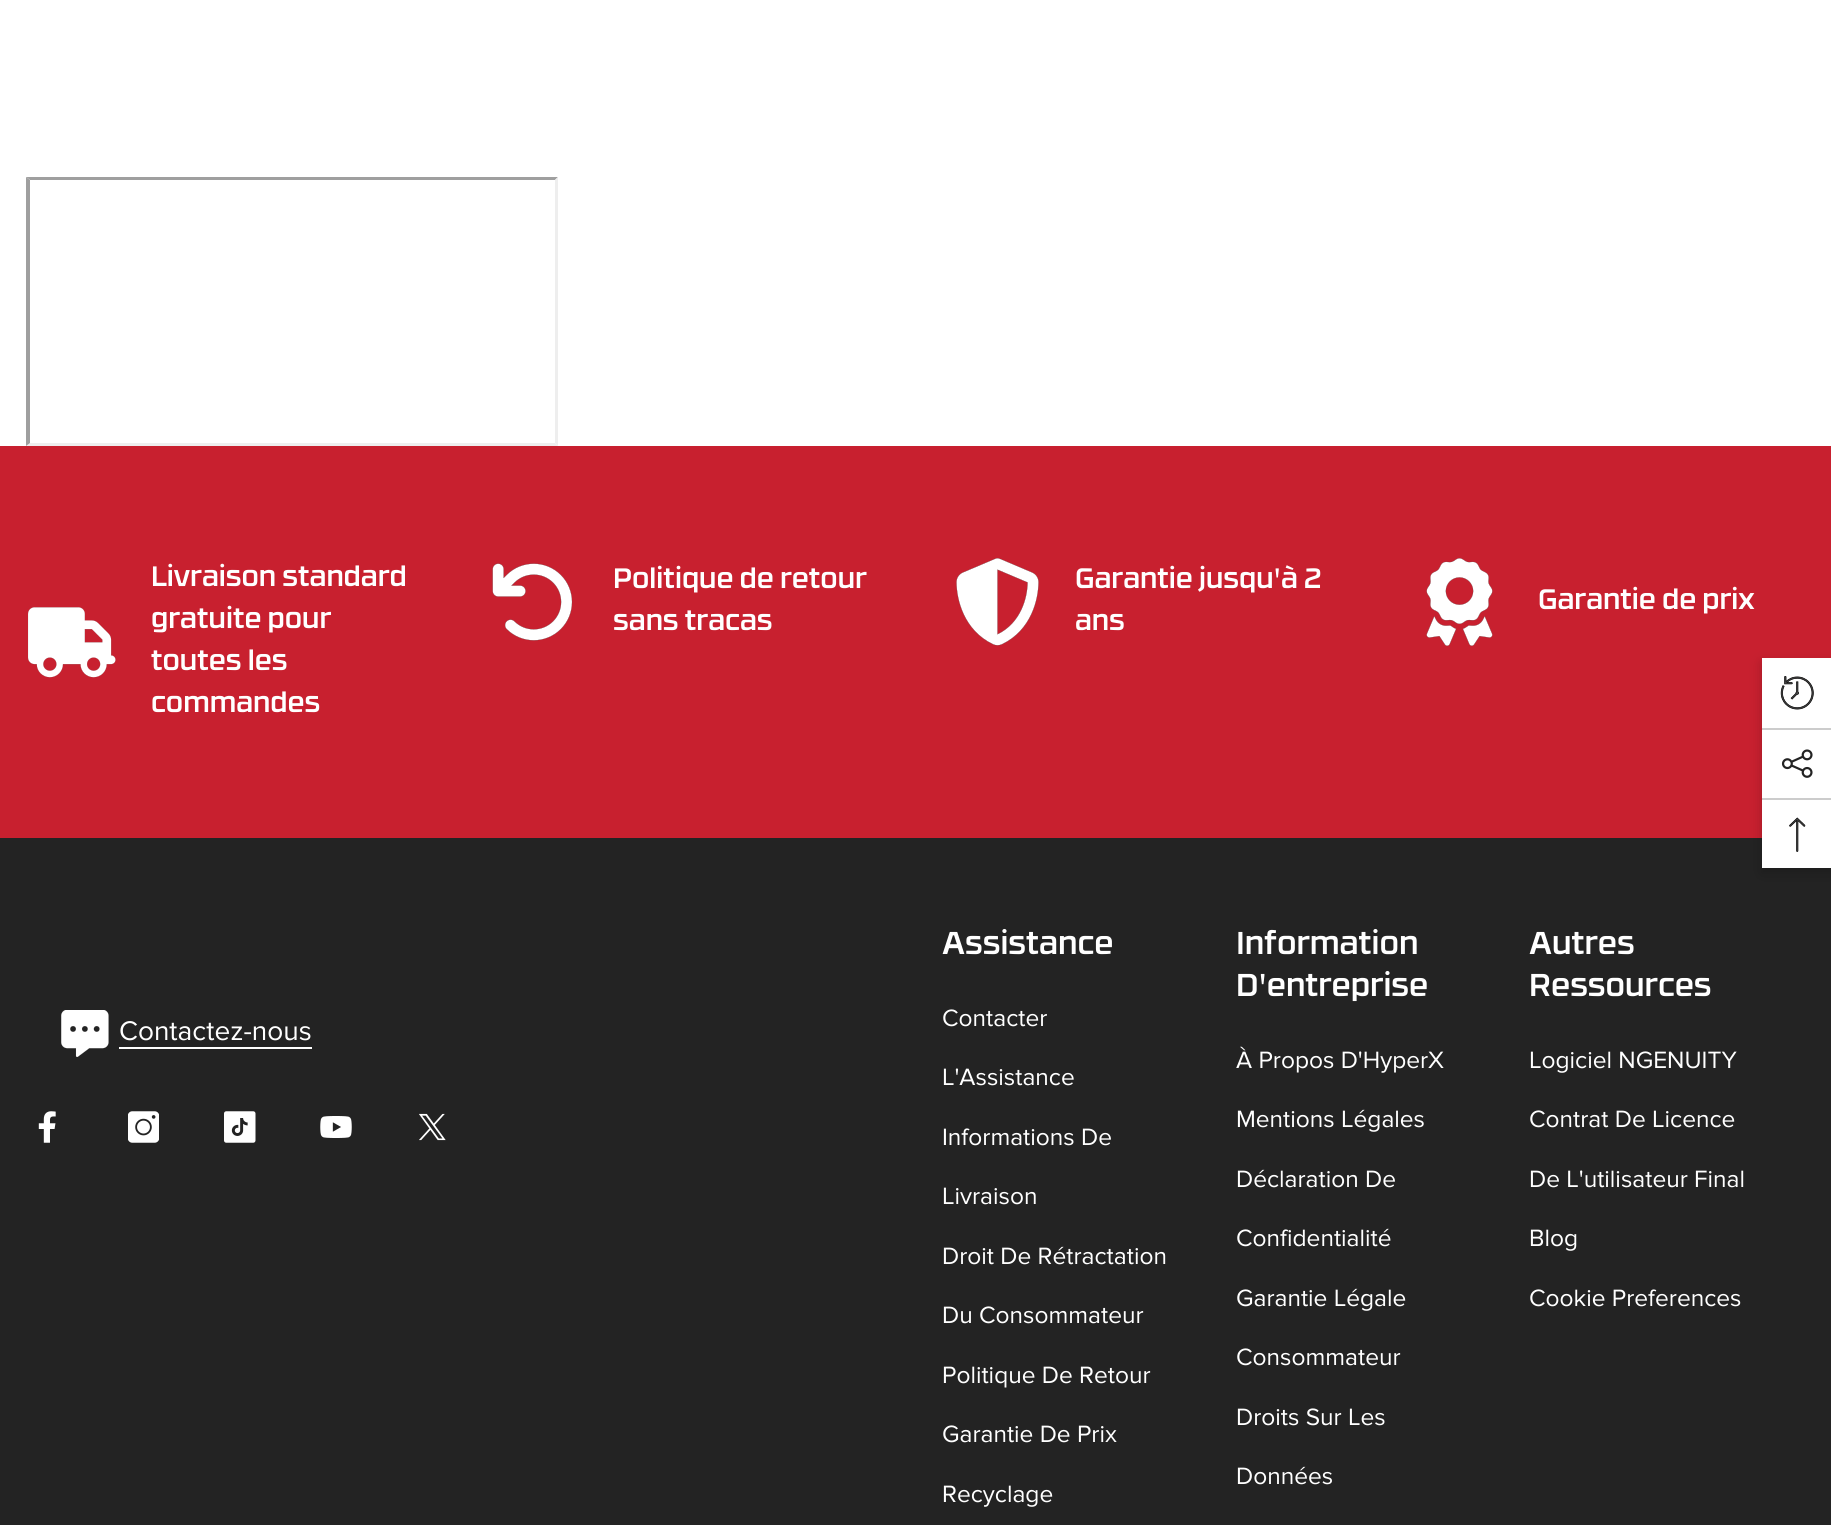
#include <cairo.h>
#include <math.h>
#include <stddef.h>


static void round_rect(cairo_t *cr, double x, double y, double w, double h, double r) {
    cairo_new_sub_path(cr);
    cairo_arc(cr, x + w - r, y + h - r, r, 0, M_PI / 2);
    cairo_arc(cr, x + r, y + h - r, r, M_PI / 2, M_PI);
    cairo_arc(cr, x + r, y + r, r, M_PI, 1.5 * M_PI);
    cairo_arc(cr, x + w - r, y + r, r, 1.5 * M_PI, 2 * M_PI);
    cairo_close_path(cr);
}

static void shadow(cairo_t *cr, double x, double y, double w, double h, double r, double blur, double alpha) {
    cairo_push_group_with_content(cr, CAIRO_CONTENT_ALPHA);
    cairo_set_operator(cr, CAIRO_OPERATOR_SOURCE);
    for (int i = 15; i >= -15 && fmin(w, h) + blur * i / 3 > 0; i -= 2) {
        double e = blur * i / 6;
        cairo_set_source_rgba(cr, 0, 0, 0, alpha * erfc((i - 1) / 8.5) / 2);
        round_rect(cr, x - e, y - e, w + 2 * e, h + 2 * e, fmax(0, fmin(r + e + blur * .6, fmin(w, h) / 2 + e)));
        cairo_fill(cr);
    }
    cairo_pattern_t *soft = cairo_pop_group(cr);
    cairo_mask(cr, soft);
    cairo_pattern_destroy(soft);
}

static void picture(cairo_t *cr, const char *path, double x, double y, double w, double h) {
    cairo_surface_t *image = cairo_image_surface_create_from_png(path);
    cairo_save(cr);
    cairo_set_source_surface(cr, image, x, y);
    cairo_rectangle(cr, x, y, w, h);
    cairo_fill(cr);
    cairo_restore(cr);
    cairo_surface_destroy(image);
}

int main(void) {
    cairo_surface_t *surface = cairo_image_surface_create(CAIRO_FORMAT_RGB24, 1831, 1525);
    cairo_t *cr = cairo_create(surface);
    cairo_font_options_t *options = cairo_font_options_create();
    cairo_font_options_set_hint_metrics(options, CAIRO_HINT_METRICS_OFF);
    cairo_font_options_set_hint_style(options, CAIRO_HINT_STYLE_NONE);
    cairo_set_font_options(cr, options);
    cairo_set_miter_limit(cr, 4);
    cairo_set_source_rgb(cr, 1, 1, 1);
    cairo_paint(cr);
    cairo_set_source_rgb(cr, 0.624, 0.624, 0.624);
    cairo_new_path(cr);
    cairo_move_to(cr, 26, 177);
    cairo_line_to(cr, 558, 177);
    cairo_line_to(cr, 555, 180);
    cairo_line_to(cr, 30, 180);
    cairo_close_path(cr);
    cairo_fill(cr);
    cairo_set_source_rgb(cr, 0.933, 0.933, 0.933);
    cairo_new_path(cr);
    cairo_move_to(cr, 558, 177);
    cairo_line_to(cr, 558, 446);
    cairo_line_to(cr, 555, 443);
    cairo_line_to(cr, 555, 180);
    cairo_close_path(cr);
    cairo_fill(cr);
    cairo_new_path(cr);
    cairo_move_to(cr, 558, 446);
    cairo_line_to(cr, 26, 446);
    cairo_line_to(cr, 30, 443);
    cairo_line_to(cr, 555, 443);
    cairo_close_path(cr);
    cairo_fill(cr);
    cairo_set_source_rgb(cr, 0.624, 0.624, 0.624);
    cairo_new_path(cr);
    cairo_move_to(cr, 26, 446);
    cairo_line_to(cr, 26, 177);
    cairo_line_to(cr, 30, 180);
    cairo_line_to(cr, 30, 443);
    cairo_close_path(cr);
    cairo_fill(cr);
    cairo_set_source_rgb(cr, 0.784, 0.125, 0.184);
    cairo_rectangle(cr, 0, 446, 1831, 392);
    cairo_fill(cr);
    picture(cr, "img1.png", 28, 607, 88, 71);
    cairo_select_font_face(cr, "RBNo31 Medium", CAIRO_FONT_SLANT_NORMAL, CAIRO_FONT_WEIGHT_NORMAL);
    cairo_set_font_size(cr, 28);
    cairo_set_source_rgb(cr, 1, 1, 1);
    cairo_move_to(cr, 151, 586);
    cairo_show_text(cr, "Livraison standard");
    cairo_move_to(cr, 151, 628);
    cairo_show_text(cr, "gratuite pour");
    cairo_move_to(cr, 151, 670);
    cairo_show_text(cr, "toutes les");
    cairo_move_to(cr, 151, 712);
    cairo_show_text(cr, "commandes");
    picture(cr, "img2.png", 492, 563, 81, 78);
    cairo_move_to(cr, 613, 588);
    cairo_show_text(cr, "Politique de retour");
    cairo_move_to(cr, 613, 630);
    cairo_show_text(cr, "sans tracas");
    picture(cr, "img3.png", 956, 558, 83, 88);
    cairo_move_to(cr, 1075, 588);
    cairo_show_text(cr, "Garantie jusqu'à 2");
    cairo_move_to(cr, 1075, 630);
    cairo_show_text(cr, "ans");
    picture(cr, "img4.png", 1426, 558, 67, 88);
    cairo_move_to(cr, 1538, 609);
    cairo_show_text(cr, "Garantie de prix");
    cairo_set_source_rgb(cr, 0.137, 0.137, 0.137);
    cairo_rectangle(cr, 0, 838, 1831, 687);
    cairo_fill(cr);
    picture(cr, "img5.png", 61, 1010, 48, 47);
    cairo_select_font_face(cr, "Proxima Nova", CAIRO_FONT_SLANT_NORMAL, CAIRO_FONT_WEIGHT_NORMAL);
    cairo_set_source_rgb(cr, 1, 1, 1);
    cairo_move_to(cr, 119, 1040);
    cairo_show_text(cr, "Contactez-nous");
    cairo_rectangle(cr, 119, 1047, 193, 2);
    cairo_fill(cr);
    picture(cr, "img6.png", 38, 1111, 18, 32);
    picture(cr, "img7.png", 128, 1111, 31, 32);
    picture(cr, "img8.png", 224, 1111, 32, 32);
    picture(cr, "img9.png", 320, 1116, 32, 22);
    picture(cr, "img10.png", 419, 1113, 27, 28);
    cairo_select_font_face(cr, "RBNo31 Medium", CAIRO_FONT_SLANT_NORMAL, CAIRO_FONT_WEIGHT_NORMAL);
    cairo_set_font_size(cr, 31.5);
    cairo_move_to(cr, 942, 954);
    cairo_show_text(cr, "Assistance");
    cairo_select_font_face(cr, "Proxima Nova", CAIRO_FONT_SLANT_NORMAL, CAIRO_FONT_WEIGHT_NORMAL);
    cairo_set_font_size(cr, 24.5);
    cairo_move_to(cr, 942, 1026);
    cairo_show_text(cr, "Contacter");
    cairo_move_to(cr, 942, 1085);
    cairo_show_text(cr, "L'Assistance");
    cairo_move_to(cr, 942, 1145);
    cairo_show_text(cr, "Informations De");
    cairo_move_to(cr, 942, 1204);
    cairo_show_text(cr, "Livraison");
    cairo_move_to(cr, 942, 1264);
    cairo_show_text(cr, "Droit De Rétractation");
    cairo_move_to(cr, 942, 1323);
    cairo_show_text(cr, "Du Consommateur");
    cairo_move_to(cr, 942, 1383);
    cairo_show_text(cr, "Politique De Retour");
    cairo_move_to(cr, 942, 1442);
    cairo_show_text(cr, "Garantie De Prix");
    cairo_move_to(cr, 942, 1502);
    cairo_show_text(cr, "Recyclage");
    cairo_select_font_face(cr, "RBNo31 Medium", CAIRO_FONT_SLANT_NORMAL, CAIRO_FONT_WEIGHT_NORMAL);
    cairo_set_font_size(cr, 31.5);
    cairo_move_to(cr, 1236, 954);
    cairo_show_text(cr, "Information");
    cairo_move_to(cr, 1236, 996);
    cairo_show_text(cr, "D'entreprise");
    cairo_select_font_face(cr, "Proxima Nova", CAIRO_FONT_SLANT_NORMAL, CAIRO_FONT_WEIGHT_NORMAL);
    cairo_set_font_size(cr, 24.5);
    cairo_move_to(cr, 1236, 1068);
    cairo_show_text(cr, "À Propos D'HyperX");
    cairo_move_to(cr, 1236, 1127);
    cairo_show_text(cr, "Mentions Légales");
    cairo_move_to(cr, 1236, 1187);
    cairo_show_text(cr, "Déclaration De");
    cairo_move_to(cr, 1236, 1246);
    cairo_show_text(cr, "Confidentialité");
    cairo_move_to(cr, 1236, 1306);
    cairo_show_text(cr, "Garantie Légale");
    cairo_move_to(cr, 1236, 1365);
    cairo_show_text(cr, "Consommateur");
    cairo_move_to(cr, 1236, 1425);
    cairo_show_text(cr, "Droits Sur Les");
    cairo_move_to(cr, 1236, 1484);
    cairo_show_text(cr, "Données");
    cairo_select_font_face(cr, "RBNo31 Medium", CAIRO_FONT_SLANT_NORMAL, CAIRO_FONT_WEIGHT_NORMAL);
    cairo_set_font_size(cr, 31.5);
    cairo_move_to(cr, 1529, 954);
    cairo_show_text(cr, "Autres");
    cairo_move_to(cr, 1529, 996);
    cairo_show_text(cr, "Ressources");
    cairo_select_font_face(cr, "Proxima Nova", CAIRO_FONT_SLANT_NORMAL, CAIRO_FONT_WEIGHT_NORMAL);
    cairo_set_font_size(cr, 24.5);
    cairo_move_to(cr, 1529, 1068);
    cairo_show_text(cr, "Logiciel NGENUITY");
    cairo_move_to(cr, 1529, 1127);
    cairo_show_text(cr, "Contrat De Licence");
    cairo_move_to(cr, 1529, 1187);
    cairo_show_text(cr, "De L'utilisateur Final");
    cairo_move_to(cr, 1529, 1246);
    cairo_show_text(cr, "Blog");
    cairo_move_to(cr, 1529, 1306);
    cairo_show_text(cr, "Cookie Preferences");
    cairo_set_source_rgb(cr, 0, 0, 0);
    shadow(cr, 1762, 663, 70, 210, 0, 6, 0.2);
    cairo_set_source_rgb(cr, 1, 1, 1);
    cairo_rectangle(cr, 1762, 658, 69, 210);
    cairo_fill(cr);
    picture(cr, "img11.png", 1780, 676, 34, 34);
    cairo_set_source_rgb(cr, 0.8, 0.8, 0.8);
    cairo_rectangle(cr, 1762, 728, 69, 2);
    cairo_fill(cr);
    picture(cr, "img12.png", 1781, 749, 32, 29);
    cairo_rectangle(cr, 1762, 798, 69, 2);
    cairo_fill(cr);
    picture(cr, "img13.png", 1789, 817, 17, 35);
    cairo_surface_write_to_png(surface, "page.png");
    cairo_font_options_destroy(options);
    cairo_destroy(cr);
    cairo_surface_destroy(surface);
    return 0;
}
